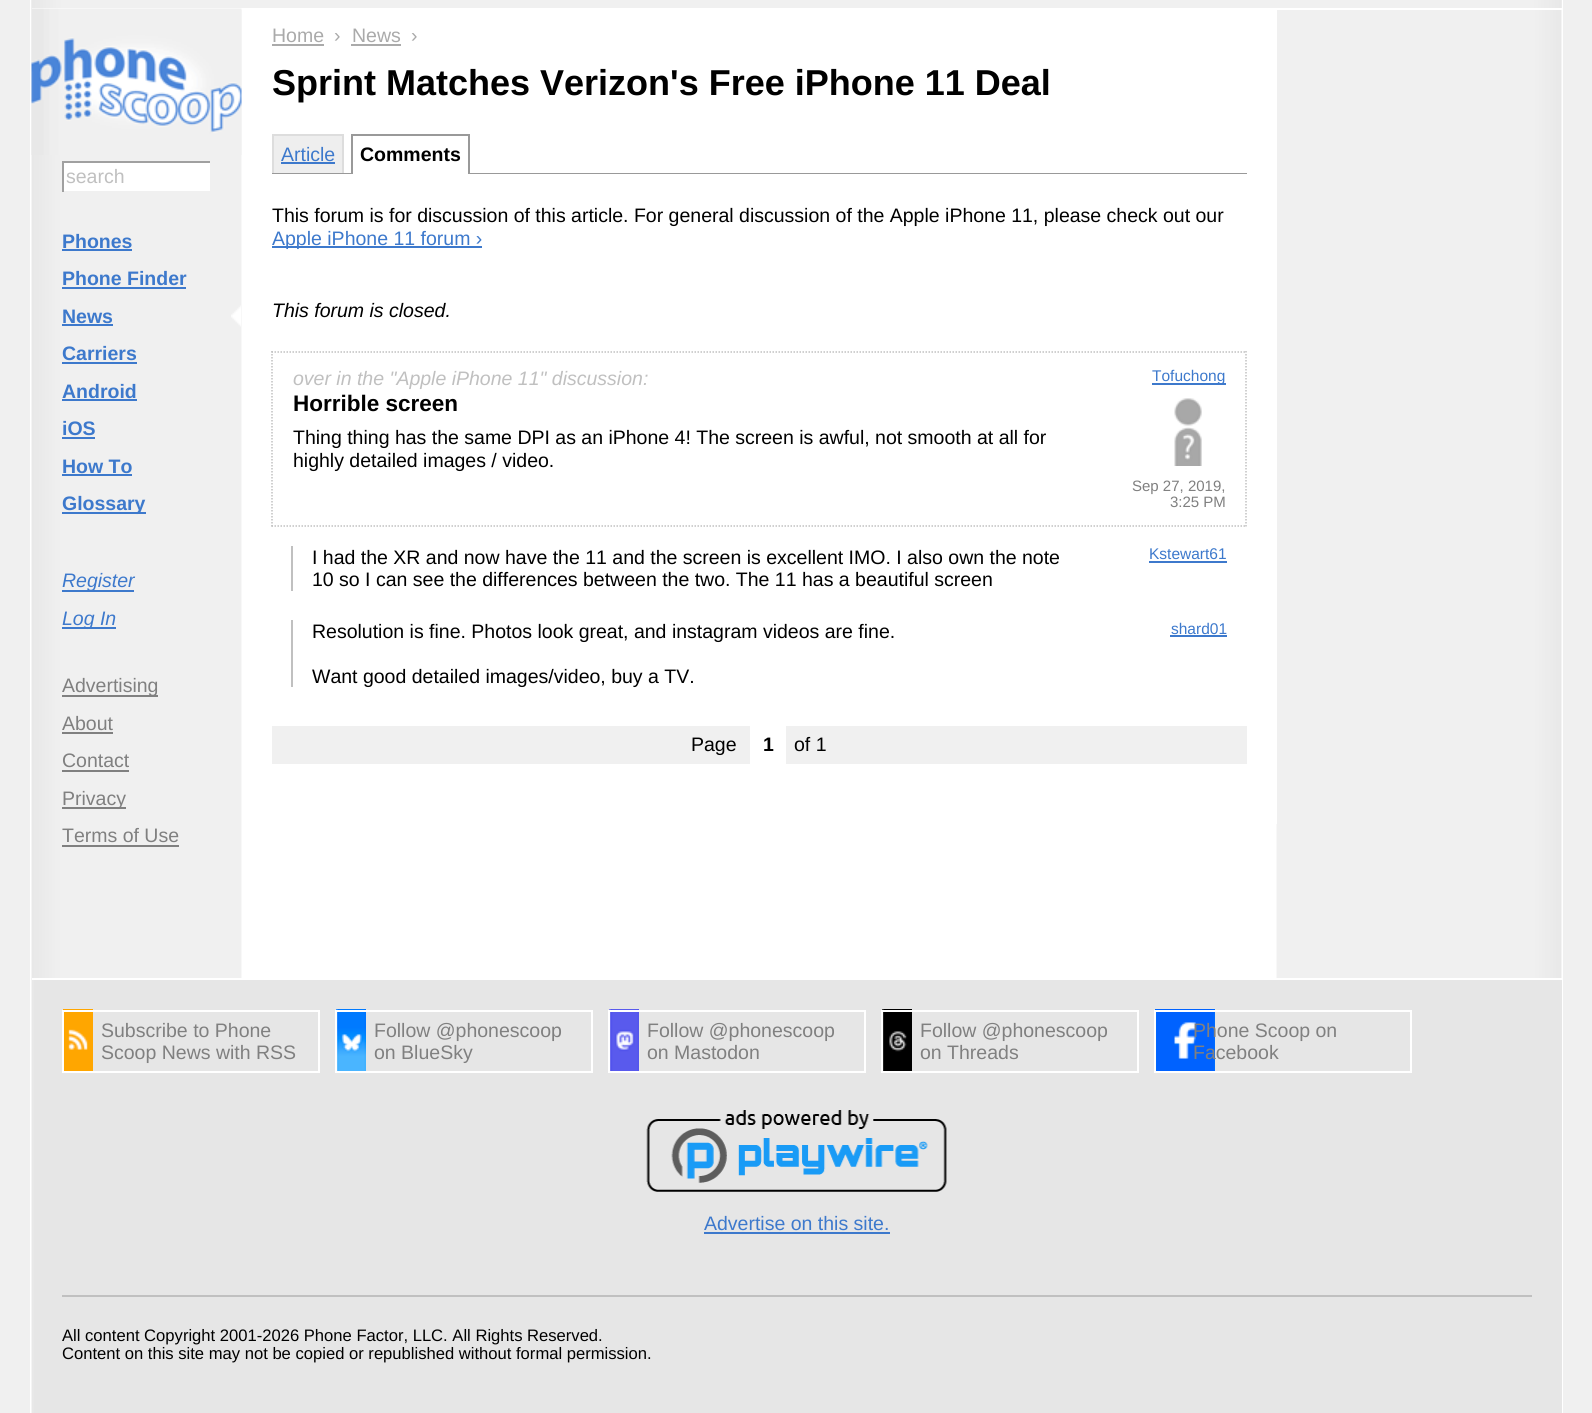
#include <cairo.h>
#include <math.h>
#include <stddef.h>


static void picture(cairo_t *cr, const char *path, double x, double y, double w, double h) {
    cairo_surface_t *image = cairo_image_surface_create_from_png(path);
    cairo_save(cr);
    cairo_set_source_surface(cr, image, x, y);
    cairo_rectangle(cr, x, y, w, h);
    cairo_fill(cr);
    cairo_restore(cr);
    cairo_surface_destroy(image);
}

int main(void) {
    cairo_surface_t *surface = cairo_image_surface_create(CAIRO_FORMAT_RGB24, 1592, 1413);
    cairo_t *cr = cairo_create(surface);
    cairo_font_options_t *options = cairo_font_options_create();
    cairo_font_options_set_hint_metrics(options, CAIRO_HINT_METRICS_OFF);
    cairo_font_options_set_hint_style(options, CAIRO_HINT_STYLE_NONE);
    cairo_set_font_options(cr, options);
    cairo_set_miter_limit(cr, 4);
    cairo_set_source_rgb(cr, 0.941, 0.941, 0.941);
    cairo_paint(cr);
    picture(cr, "img1.png", 30, 0, 1533, 1413);
    cairo_set_source_rgb(cr, 0.941, 0.941, 0.941);
    cairo_rectangle(cr, 1561, 0, 1, 8);
    cairo_fill(cr);
    picture(cr, "img2.png", 31, 0, 1531, 9);
    cairo_set_source_rgb(cr, 1, 1, 1);
    cairo_rectangle(cr, 32, 8, 1530, 2);
    cairo_fill(cr);
    picture(cr, "img3.png", 31, 8, 211, 147);
    cairo_rectangle(cr, 64, 163, 146, 28);
    cairo_fill(cr);
    cairo_set_source_rgb(cr, 0.627, 0.627, 0.627);
    cairo_rectangle(cr, 62, 161, 150, 2);
    cairo_fill(cr);
    cairo_set_source_rgb(cr, 0.941, 0.941, 0.941);
    cairo_rectangle(cr, 210, 161, 2, 2);
    cairo_fill(cr);
    cairo_set_source_rgb(cr, 0.627, 0.627, 0.627);
    cairo_rectangle(cr, 62, 161, 2, 31);
    cairo_fill(cr);
    cairo_select_font_face(cr, "Arimo", CAIRO_FONT_SLANT_NORMAL, CAIRO_FONT_WEIGHT_NORMAL);
    cairo_set_font_size(cr, 19.5);
    cairo_set_source_rgb(cr, 0.753, 0.753, 0.753);
    cairo_move_to(cr, 66, 183);
    cairo_show_text(cr, "search");
    cairo_select_font_face(cr, "Arimo", CAIRO_FONT_SLANT_NORMAL, CAIRO_FONT_WEIGHT_BOLD);
    cairo_set_source_rgb(cr, 0.239, 0.475, 0.8);
    cairo_move_to(cr, 62, 248);
    cairo_show_text(cr, "Phones");
    cairo_rectangle(cr, 62, 249, 70, 2);
    cairo_fill(cr);
    cairo_move_to(cr, 62, 285);
    cairo_show_text(cr, "Phone Finder");
    cairo_rectangle(cr, 62, 287, 124, 2);
    cairo_fill(cr);
    picture(cr, "img4.png", 231, 305, 10, 22);
    cairo_move_to(cr, 62, 323);
    cairo_show_text(cr, "News");
    cairo_rectangle(cr, 62, 324, 51, 2);
    cairo_fill(cr);
    cairo_move_to(cr, 62, 360);
    cairo_show_text(cr, "Carriers");
    cairo_rectangle(cr, 62, 362, 75, 2);
    cairo_fill(cr);
    cairo_move_to(cr, 62, 398);
    cairo_show_text(cr, "Android");
    cairo_rectangle(cr, 62, 399, 75, 2);
    cairo_fill(cr);
    cairo_move_to(cr, 62, 435);
    cairo_show_text(cr, "iOS");
    cairo_rectangle(cr, 62, 437, 33, 2);
    cairo_fill(cr);
    cairo_move_to(cr, 62, 473);
    cairo_show_text(cr, "How To");
    cairo_rectangle(cr, 62, 474, 70, 2);
    cairo_fill(cr);
    cairo_rectangle(cr, 62, 512, 84, 2);
    cairo_fill(cr);
    cairo_move_to(cr, 62, 510);
    cairo_show_text(cr, "Glossary");
    cairo_rectangle(cr, 62, 590, 72, 2);
    cairo_fill(cr);
    cairo_select_font_face(cr, "Arimo", CAIRO_FONT_SLANT_ITALIC, CAIRO_FONT_WEIGHT_NORMAL);
    cairo_move_to(cr, 62, 587);
    cairo_show_text(cr, "Register");
    cairo_rectangle(cr, 62, 627, 54, 2);
    cairo_fill(cr);
    cairo_move_to(cr, 62, 625);
    cairo_show_text(cr, "Log In");
    cairo_set_source_rgb(cr, 0.502, 0.502, 0.502);
    cairo_rectangle(cr, 62, 695, 96, 2);
    cairo_fill(cr);
    cairo_select_font_face(cr, "Arimo", CAIRO_FONT_SLANT_NORMAL, CAIRO_FONT_WEIGHT_NORMAL);
    cairo_move_to(cr, 62, 692);
    cairo_show_text(cr, "Advertising");
    cairo_move_to(cr, 62, 730);
    cairo_show_text(cr, "About");
    cairo_rectangle(cr, 62, 732, 51, 2);
    cairo_fill(cr);
    cairo_move_to(cr, 62, 767);
    cairo_show_text(cr, "Contact");
    cairo_rectangle(cr, 62, 770, 67, 2);
    cairo_fill(cr);
    cairo_rectangle(cr, 62, 807, 64, 2);
    cairo_fill(cr);
    cairo_move_to(cr, 62, 805);
    cairo_show_text(cr, "Privacy");
    cairo_move_to(cr, 62, 842);
    cairo_show_text(cr, "Terms of Use");
    cairo_rectangle(cr, 62, 845, 117, 2);
    cairo_fill(cr);
    cairo_set_source_rgb(cr, 1, 1, 1);
    cairo_rectangle(cr, 1276, 10, 1, 814);
    cairo_fill(cr);
    cairo_set_source_rgb(cr, 0.667, 0.667, 0.667);
    cairo_move_to(cr, 272, 42);
    cairo_show_text(cr, "Home");
    cairo_rectangle(cr, 272, 44, 52, 2);
    cairo_fill(cr);
    cairo_move_to(cr, 334, 42);
    cairo_show_text(cr, "›");
    cairo_move_to(cr, 352, 42);
    cairo_show_text(cr, "News");
    cairo_rectangle(cr, 351, 44, 50, 2);
    cairo_fill(cr);
    cairo_move_to(cr, 411, 42);
    cairo_show_text(cr, "›");
    cairo_select_font_face(cr, "Arimo", CAIRO_FONT_SLANT_NORMAL, CAIRO_FONT_WEIGHT_BOLD);
    cairo_set_font_size(cr, 36);
    cairo_set_source_rgb(cr, 0, 0, 0);
    cairo_move_to(cr, 272, 95);
    cairo_show_text(cr, "Sprint Matches Verizon's Free iPhone 11 Deal");
    cairo_set_source_rgb(cr, 0.933, 0.933, 0.933);
    cairo_rectangle(cr, 274, 136, 68, 37);
    cairo_fill(cr);
    cairo_set_source_rgb(cr, 0.867, 0.867, 0.867);
    cairo_rectangle(cr, 272, 134, 72, 2);
    cairo_fill(cr);
    cairo_rectangle(cr, 342, 134, 2, 39);
    cairo_fill(cr);
    cairo_rectangle(cr, 272, 134, 2, 39);
    cairo_fill(cr);
    cairo_select_font_face(cr, "Arimo", CAIRO_FONT_SLANT_NORMAL, CAIRO_FONT_WEIGHT_NORMAL);
    cairo_set_font_size(cr, 19.5);
    cairo_set_source_rgb(cr, 0.239, 0.475, 0.8);
    cairo_move_to(cr, 281, 161);
    cairo_show_text(cr, "Article");
    cairo_rectangle(cr, 281, 162, 54, 2);
    cairo_fill(cr);
    cairo_set_source_rgb(cr, 0.6, 0.6, 0.6);
    cairo_rectangle(cr, 272, 173, 975, 1);
    cairo_fill(cr);
    cairo_set_source_rgb(cr, 1, 1, 1);
    cairo_rectangle(cr, 353, 173, 115, 1);
    cairo_fill(cr);
    cairo_set_source_rgb(cr, 0.6, 0.6, 0.6);
    cairo_rectangle(cr, 351, 134, 119, 2);
    cairo_fill(cr);
    cairo_rectangle(cr, 468, 134, 2, 40);
    cairo_fill(cr);
    cairo_rectangle(cr, 351, 134, 2, 40);
    cairo_fill(cr);
    cairo_select_font_face(cr, "Arimo", CAIRO_FONT_SLANT_NORMAL, CAIRO_FONT_WEIGHT_BOLD);
    cairo_set_source_rgb(cr, 0, 0, 0);
    cairo_move_to(cr, 360, 161);
    cairo_show_text(cr, "Comments");
    cairo_select_font_face(cr, "Arimo", CAIRO_FONT_SLANT_NORMAL, CAIRO_FONT_WEIGHT_NORMAL);
    cairo_move_to(cr, 272, 222);
    cairo_show_text(cr, "This forum is for discussion of this article. For general discussion of the Apple iPhone 11, please check out our");
    cairo_set_source_rgb(cr, 0.239, 0.475, 0.8);
    cairo_rectangle(cr, 272, 246, 210, 2);
    cairo_fill(cr);
    cairo_move_to(cr, 272, 245);
    cairo_show_text(cr, "Apple iPhone 11 forum ›");
    cairo_select_font_face(cr, "Arimo", CAIRO_FONT_SLANT_ITALIC, CAIRO_FONT_WEIGHT_NORMAL);
    cairo_set_source_rgb(cr, 0, 0, 0);
    cairo_move_to(cr, 272, 317);
    cairo_show_text(cr, "This forum is closed.");
    cairo_new_path(cr);
    cairo_move_to(cr, 271.5, 352);
    cairo_line_to(cr, 1246.5, 352);
    cairo_set_source_rgb(cr, 0.753, 0.753, 0.753);
    cairo_set_line_width(cr, 1.5);
    cairo_set_dash(cr, (double[]){1.5, 1.5}, 2, 0);
    cairo_stroke(cr);
    cairo_new_path(cr);
    cairo_move_to(cr, 1246, 351);
    cairo_line_to(cr, 1246, 526.5);
    cairo_stroke(cr);
    cairo_new_path(cr);
    cairo_move_to(cr, 271.5, 526);
    cairo_line_to(cr, 1246.5, 526);
    cairo_stroke(cr);
    cairo_new_path(cr);
    cairo_move_to(cr, 272, 351);
    cairo_line_to(cr, 272, 526.5);
    cairo_stroke(cr);
    cairo_move_to(cr, 293, 385);
    cairo_show_text(cr, "over in the \"Apple iPhone 11\" discussion:");
    cairo_set_source_rgb(cr, 0.239, 0.475, 0.8);
    cairo_rectangle(cr, 1152, 383, 74, 2);
    cairo_fill(cr);
    cairo_select_font_face(cr, "Arimo", CAIRO_FONT_SLANT_NORMAL, CAIRO_FONT_WEIGHT_NORMAL);
    cairo_set_font_size(cr, 15.5);
    cairo_move_to(cr, 1152, 381);
    cairo_show_text(cr, "Tofuchong");
    picture(cr, "img5.png", 1174, 398, 28, 68);
    cairo_set_font_size(cr, 15);
    cairo_set_source_rgb(cr, 0.502, 0.502, 0.502);
    cairo_move_to(cr, 1132, 491);
    cairo_show_text(cr, "Sep 27, 2019,");
    cairo_move_to(cr, 1170, 507);
    cairo_show_text(cr, "3:25 PM");
    cairo_select_font_face(cr, "Arimo", CAIRO_FONT_SLANT_NORMAL, CAIRO_FONT_WEIGHT_BOLD);
    cairo_set_font_size(cr, 22.5);
    cairo_set_source_rgb(cr, 0, 0, 0);
    cairo_move_to(cr, 293, 411);
    cairo_show_text(cr, "Horrible screen");
    cairo_select_font_face(cr, "Arimo", CAIRO_FONT_SLANT_NORMAL, CAIRO_FONT_WEIGHT_NORMAL);
    cairo_set_font_size(cr, 19.5);
    cairo_move_to(cr, 293, 444);
    cairo_show_text(cr, "Thing thing has the same DPI as an iPhone 4! The screen is awful, not smooth at all for");
    cairo_move_to(cr, 293, 467);
    cairo_show_text(cr, "highly detailed images / video.");
    cairo_set_source_rgb(cr, 0.753, 0.753, 0.753);
    cairo_rectangle(cr, 291, 546, 2, 45);
    cairo_fill(cr);
    cairo_set_source_rgb(cr, 0, 0, 0);
    cairo_move_to(cr, 312, 564);
    cairo_show_text(cr, "I had the XR and now have the 11 and the screen is excellent IMO. I also own the note");
    cairo_move_to(cr, 312, 586);
    cairo_show_text(cr, "10 so I can see the differences between the two. The 11 has a beautiful screen");
    cairo_set_font_size(cr, 15.5);
    cairo_set_source_rgb(cr, 0.239, 0.475, 0.8);
    cairo_move_to(cr, 1149, 559);
    cairo_show_text(cr, "Kstewart61");
    cairo_rectangle(cr, 1149, 561, 78, 2);
    cairo_fill(cr);
    cairo_set_source_rgb(cr, 0.753, 0.753, 0.753);
    cairo_rectangle(cr, 291, 620, 2, 67);
    cairo_fill(cr);
    cairo_set_font_size(cr, 19.5);
    cairo_set_source_rgb(cr, 0, 0, 0);
    cairo_move_to(cr, 312, 638);
    cairo_show_text(cr, "Resolution is fine. Photos look great, and instagram videos are fine.");
    cairo_move_to(cr, 312, 683);
    cairo_show_text(cr, "Want good detailed images/video, buy a TV.");
    cairo_set_font_size(cr, 15.5);
    cairo_set_source_rgb(cr, 0.239, 0.475, 0.8);
    cairo_move_to(cr, 1171, 634);
    cairo_show_text(cr, "shard01");
    cairo_rectangle(cr, 1170, 635, 57, 2);
    cairo_fill(cr);
    cairo_set_source_rgb(cr, 0.941, 0.941, 0.941);
    cairo_rectangle(cr, 272, 726, 975, 38);
    cairo_fill(cr);
    cairo_set_font_size(cr, 19.5);
    cairo_set_source_rgb(cr, 0, 0, 0);
    cairo_move_to(cr, 691, 751);
    cairo_show_text(cr, "Page");
    cairo_set_source_rgb(cr, 1, 1, 1);
    cairo_rectangle(cr, 750, 726, 36, 38);
    cairo_fill(cr);
    cairo_select_font_face(cr, "Arimo", CAIRO_FONT_SLANT_NORMAL, CAIRO_FONT_WEIGHT_BOLD);
    cairo_set_source_rgb(cr, 0, 0, 0);
    cairo_move_to(cr, 763, 751);
    cairo_show_text(cr, "1");
    cairo_select_font_face(cr, "Arimo", CAIRO_FONT_SLANT_NORMAL, CAIRO_FONT_WEIGHT_NORMAL);
    cairo_move_to(cr, 794, 751);
    cairo_show_text(cr, "of 1");
    cairo_set_source_rgb(cr, 0.902, 0.902, 0.902);
    cairo_rectangle(cr, 34, 980, 1528, 433);
    cairo_fill(cr);
    cairo_set_source_rgb(cr, 1, 1, 1);
    cairo_rectangle(cr, 32, 978, 1530, 2);
    cairo_fill(cr);
    picture(cr, "img6.png", 63, 1009, 30, 62);
    cairo_rectangle(cr, 63, 1011, 256, 61);
    cairo_set_line_width(cr, 2);
    cairo_set_dash(cr, NULL, 0, 0);
    cairo_stroke(cr);
    cairo_set_source_rgb(cr, 0.502, 0.502, 0.502);
    cairo_move_to(cr, 101, 1037);
    cairo_show_text(cr, "Subscribe to Phone");
    cairo_move_to(cr, 101, 1059);
    cairo_show_text(cr, "Scoop News with RSS");
    picture(cr, "img7.png", 336, 1009, 30, 62);
    cairo_rectangle(cr, 336, 1011, 256, 61);
    cairo_set_source_rgb(cr, 1, 1, 1);
    cairo_stroke(cr);
    cairo_set_source_rgb(cr, 0.502, 0.502, 0.502);
    cairo_move_to(cr, 374, 1037);
    cairo_show_text(cr, "Follow @phonescoop");
    cairo_move_to(cr, 374, 1059);
    cairo_show_text(cr, "on BlueSky");
    picture(cr, "img8.png", 609, 1009, 30, 62);
    cairo_rectangle(cr, 609, 1011, 256, 61);
    cairo_set_source_rgb(cr, 1, 1, 1);
    cairo_stroke(cr);
    cairo_set_source_rgb(cr, 0.502, 0.502, 0.502);
    cairo_move_to(cr, 647, 1037);
    cairo_show_text(cr, "Follow @phonescoop");
    cairo_move_to(cr, 647, 1059);
    cairo_show_text(cr, "on Mastodon");
    picture(cr, "img9.png", 882, 1009, 30, 62);
    cairo_rectangle(cr, 882, 1011, 256, 61);
    cairo_set_source_rgb(cr, 1, 1, 1);
    cairo_stroke(cr);
    cairo_set_source_rgb(cr, 0.502, 0.502, 0.502);
    cairo_move_to(cr, 920, 1037);
    cairo_show_text(cr, "Follow @phonescoop");
    cairo_move_to(cr, 920, 1059);
    cairo_show_text(cr, "on Threads");
    picture(cr, "img10.png", 1155, 1009, 60, 62);
    cairo_rectangle(cr, 1155, 1011, 256, 61);
    cairo_set_source_rgb(cr, 1, 1, 1);
    cairo_stroke(cr);
    cairo_set_source_rgb(cr, 0.502, 0.502, 0.502);
    cairo_move_to(cr, 1193, 1037);
    cairo_show_text(cr, "Phone Scoop on");
    cairo_move_to(cr, 1193, 1059);
    cairo_show_text(cr, "Facebook");
    picture(cr, "img11.png", 646, 1110, 301, 82);
    cairo_set_source_rgb(cr, 0.239, 0.475, 0.8);
    cairo_move_to(cr, 704, 1230);
    cairo_show_text(cr, "Advertise on this site.");
    cairo_rectangle(cr, 704, 1232, 186, 2);
    cairo_fill(cr);
    cairo_set_source_rgb(cr, 0.753, 0.753, 0.753);
    cairo_rectangle(cr, 62, 1295, 1470, 2);
    cairo_fill(cr);
    cairo_set_font_size(cr, 16.6);
    cairo_set_source_rgb(cr, 0, 0, 0);
    cairo_move_to(cr, 62, 1341);
    cairo_show_text(cr, "All content Copyright 2001-2026 Phone Factor, LLC. All Rights Reserved.");
    cairo_move_to(cr, 62, 1359);
    cairo_show_text(cr, "Content on this site may not be copied or republished without formal permission.");
    cairo_surface_write_to_png(surface, "page.png");
    cairo_font_options_destroy(options);
    cairo_destroy(cr);
    cairo_surface_destroy(surface);
    return 0;
}
